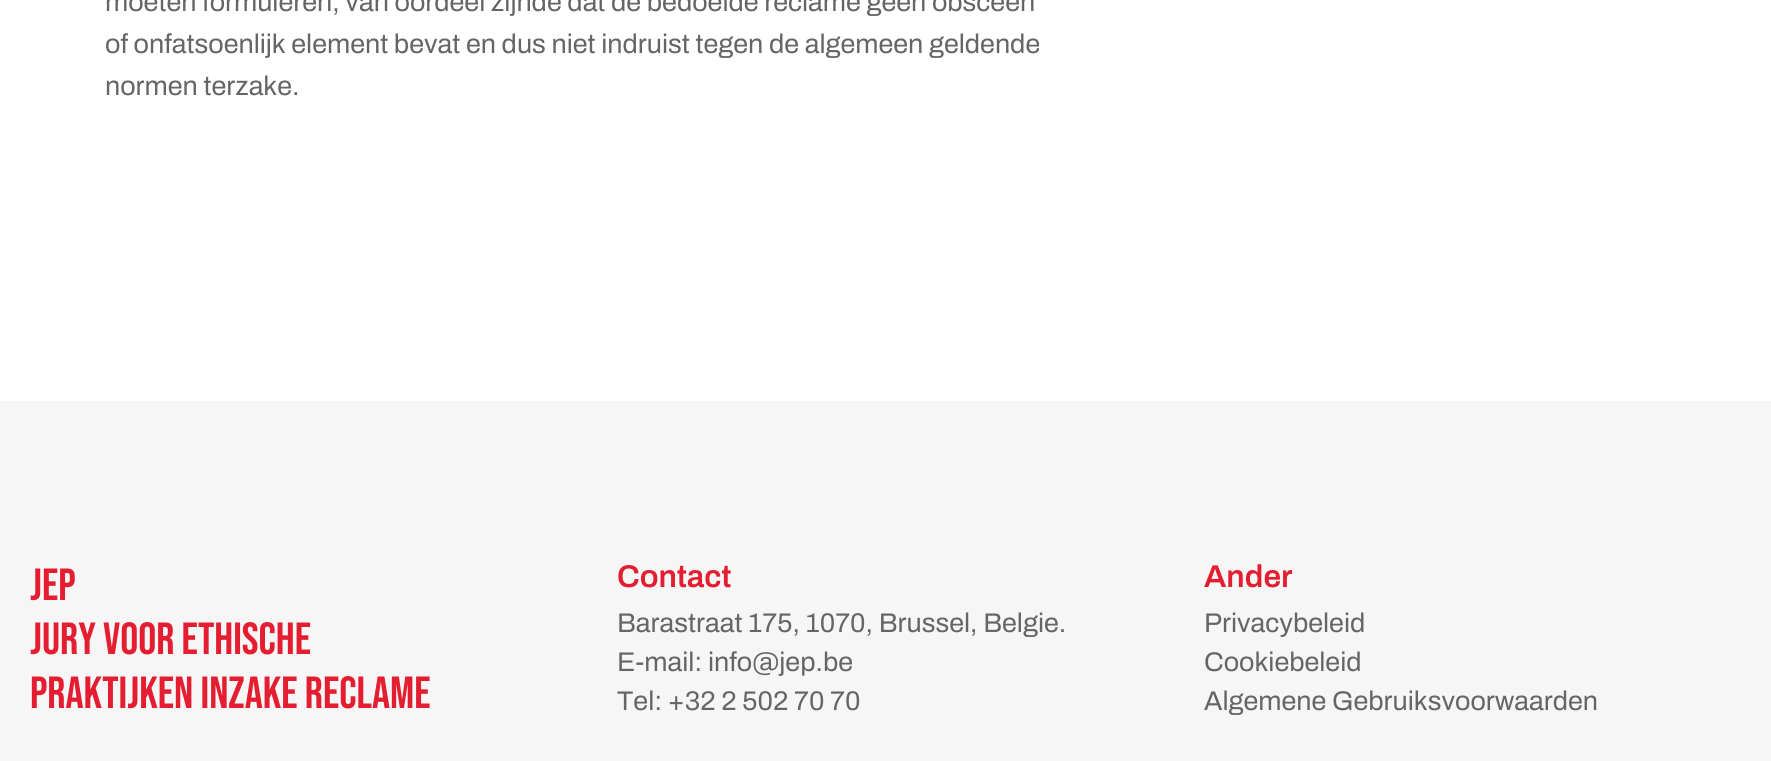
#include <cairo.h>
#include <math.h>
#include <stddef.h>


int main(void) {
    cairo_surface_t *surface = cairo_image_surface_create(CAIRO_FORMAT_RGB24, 1771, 761);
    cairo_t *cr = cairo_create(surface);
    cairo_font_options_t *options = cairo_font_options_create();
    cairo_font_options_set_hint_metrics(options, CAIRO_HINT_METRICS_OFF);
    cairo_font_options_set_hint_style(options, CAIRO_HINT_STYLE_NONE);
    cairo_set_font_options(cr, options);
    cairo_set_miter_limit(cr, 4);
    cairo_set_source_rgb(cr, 1, 1, 1);
    cairo_paint(cr);
    cairo_select_font_face(cr, "Archivo", CAIRO_FONT_SLANT_NORMAL, CAIRO_FONT_WEIGHT_NORMAL);
    cairo_set_font_size(cr, 27);
    cairo_set_source_rgb(cr, 0.396, 0.396, 0.396);
    cairo_move_to(cr, 105, 11);
    cairo_show_text(cr, "moeten formuleren, van oordeel zijnde dat de bedoelde reclame geen obsceen");
    cairo_move_to(cr, 105, 53);
    cairo_show_text(cr, "of onfatsoenlijk element bevat en dus niet indruist tegen de algemeen geldende");
    cairo_move_to(cr, 105, 95);
    cairo_show_text(cr, "normen terzake.");
    cairo_set_source_rgb(cr, 0.961, 0.961, 0.961);
    cairo_rectangle(cr, 0, 401, 1771, 360);
    cairo_fill(cr);
    cairo_select_font_face(cr, "Bebas Neue", CAIRO_FONT_SLANT_NORMAL, CAIRO_FONT_WEIGHT_NORMAL);
    cairo_set_font_size(cr, 45);
    cairo_set_source_rgb(cr, 0.894, 0.118, 0.188);
    cairo_move_to(cr, 30, 600);
    cairo_show_text(cr, "JEP");
    cairo_move_to(cr, 30, 654);
    cairo_show_text(cr, "JURY VOOR ETHISCHE");
    cairo_move_to(cr, 30, 708);
    cairo_show_text(cr, "PRAKTIJKEN INZAKE RECLAME");
    cairo_select_font_face(cr, "Archivo SemiBold", CAIRO_FONT_SLANT_NORMAL, CAIRO_FONT_WEIGHT_NORMAL);
    cairo_set_font_size(cr, 31.5);
    cairo_move_to(cr, 617, 587);
    cairo_show_text(cr, "Contact");
    cairo_select_font_face(cr, "Archivo", CAIRO_FONT_SLANT_NORMAL, CAIRO_FONT_WEIGHT_NORMAL);
    cairo_set_font_size(cr, 27);
    cairo_set_source_rgb(cr, 0.396, 0.396, 0.396);
    cairo_move_to(cr, 617, 632);
    cairo_show_text(cr, "Barastraat 175, 1070, Brussel, Belgie.");
    cairo_move_to(cr, 617, 671);
    cairo_show_text(cr, "E-mail: info@jep.be");
    cairo_move_to(cr, 617, 710);
    cairo_show_text(cr, "Tel: +32 2 502 70 70");
    cairo_select_font_face(cr, "Archivo SemiBold", CAIRO_FONT_SLANT_NORMAL, CAIRO_FONT_WEIGHT_NORMAL);
    cairo_set_font_size(cr, 31.5);
    cairo_set_source_rgb(cr, 0.894, 0.118, 0.188);
    cairo_move_to(cr, 1204, 587);
    cairo_show_text(cr, "Ander");
    cairo_select_font_face(cr, "Archivo", CAIRO_FONT_SLANT_NORMAL, CAIRO_FONT_WEIGHT_NORMAL);
    cairo_set_font_size(cr, 27);
    cairo_set_source_rgb(cr, 0.396, 0.396, 0.396);
    cairo_move_to(cr, 1204, 632);
    cairo_show_text(cr, "Privacybeleid");
    cairo_move_to(cr, 1204, 671);
    cairo_show_text(cr, "Cookiebeleid");
    cairo_move_to(cr, 1204, 710);
    cairo_show_text(cr, "Algemene Gebruiksvoorwaarden");
    cairo_surface_write_to_png(surface, "page.png");
    cairo_font_options_destroy(options);
    cairo_destroy(cr);
    cairo_surface_destroy(surface);
    return 0;
}
